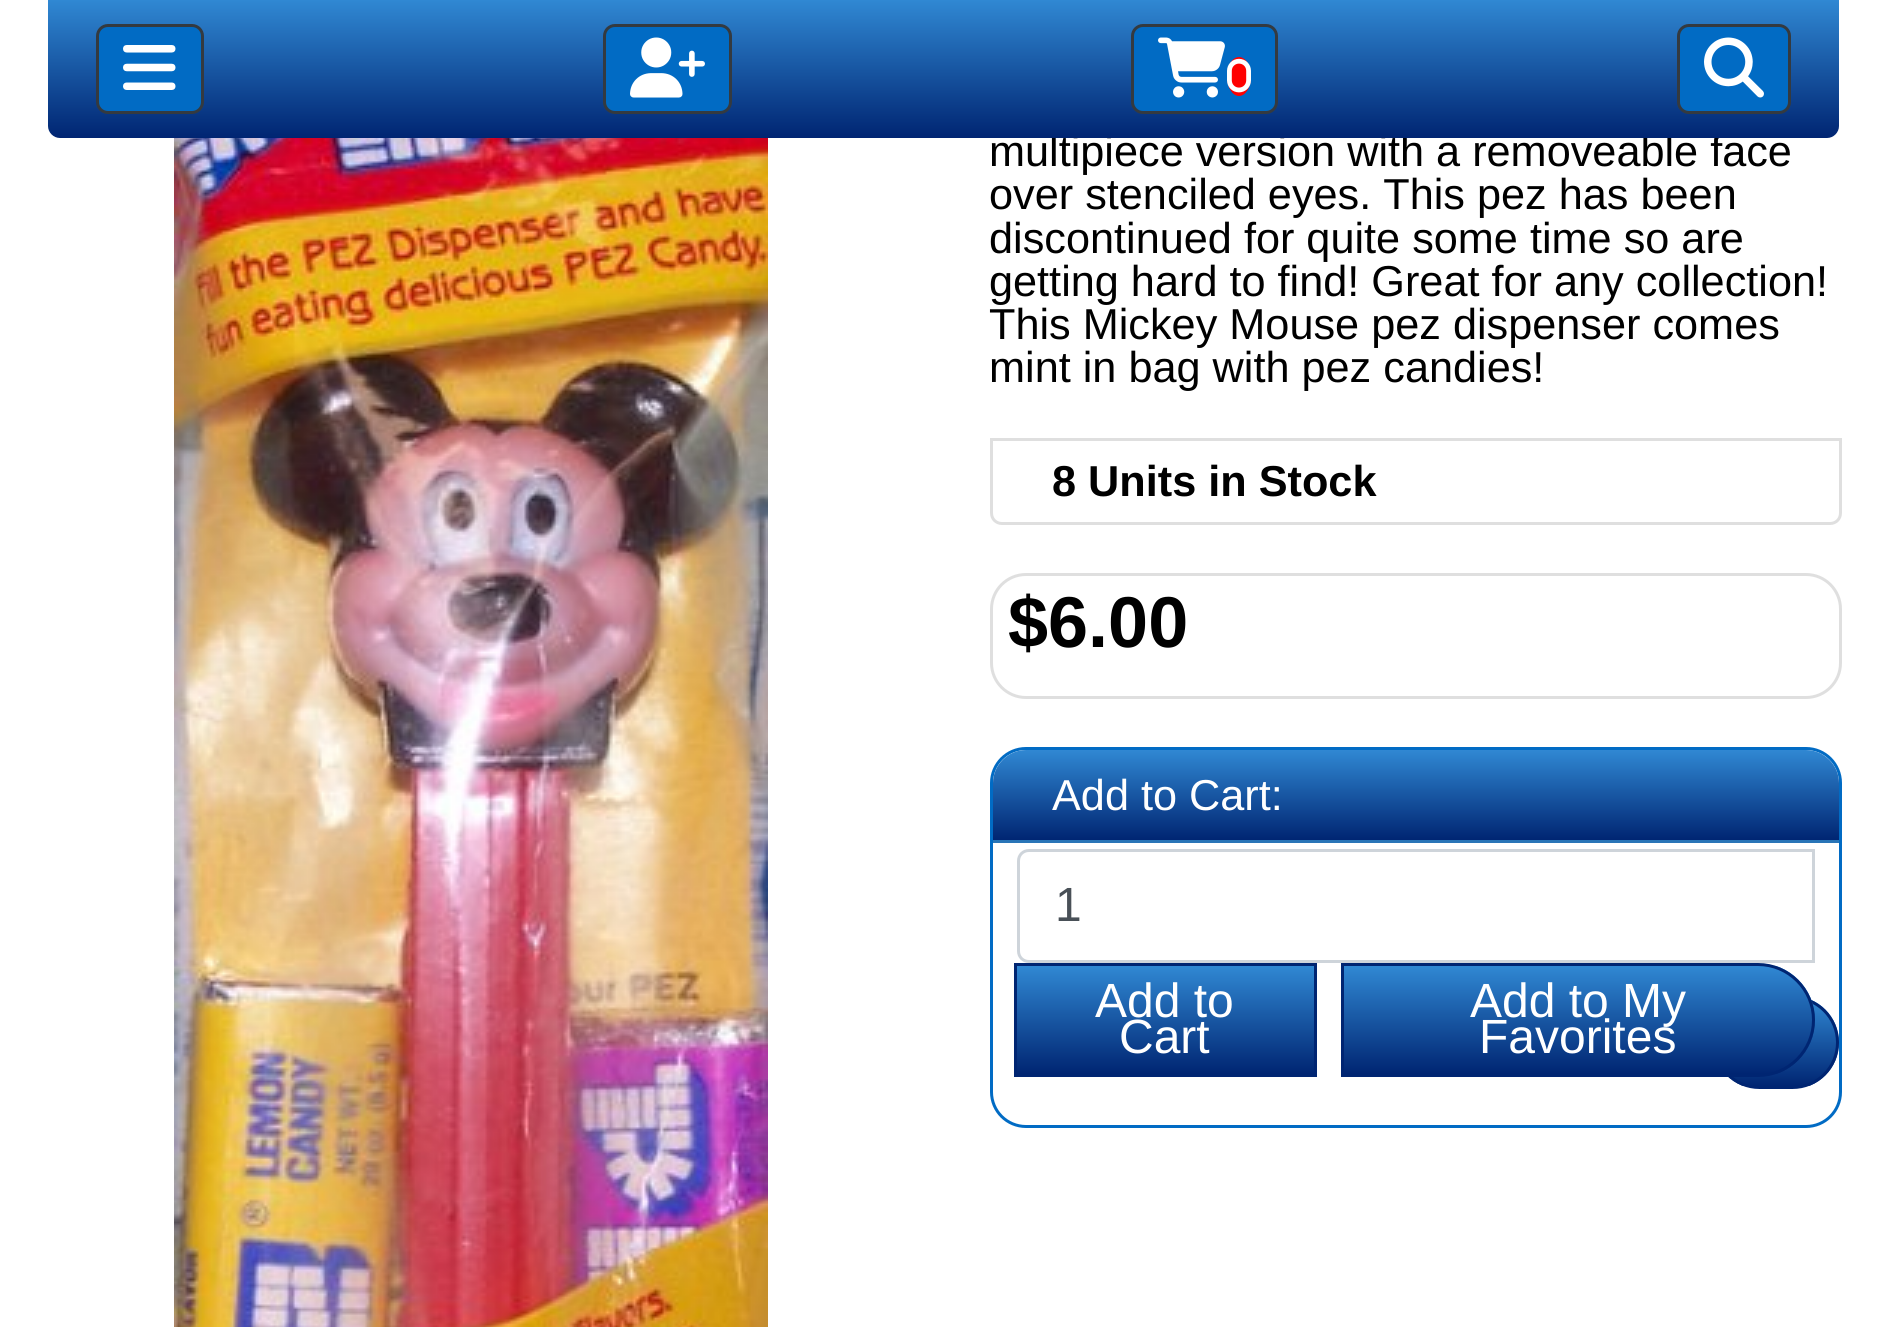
#include <cairo.h>
#include <math.h>
#include <stddef.h>


static void round_rect(cairo_t *cr, double x, double y, double w, double h, double r) {
    cairo_new_sub_path(cr);
    cairo_arc(cr, x + w - r, y + h - r, r, 0, M_PI / 2);
    cairo_arc(cr, x + r, y + h - r, r, M_PI / 2, M_PI);
    cairo_arc(cr, x + r, y + r, r, M_PI, 1.5 * M_PI);
    cairo_arc(cr, x + w - r, y + r, r, 1.5 * M_PI, 2 * M_PI);
    cairo_close_path(cr);
}

static void picture(cairo_t *cr, const char *path, double x, double y, double w, double h) {
    cairo_surface_t *image = cairo_image_surface_create_from_png(path);
    cairo_save(cr);
    cairo_set_source_surface(cr, image, x, y);
    cairo_rectangle(cr, x, y, w, h);
    cairo_fill(cr);
    cairo_restore(cr);
    cairo_surface_destroy(image);
}

int main(void) {
    cairo_surface_t *surface = cairo_image_surface_create(CAIRO_FORMAT_RGB24, 1885, 1327);
    cairo_t *cr = cairo_create(surface);
    cairo_font_options_t *options = cairo_font_options_create();
    cairo_font_options_set_hint_metrics(options, CAIRO_HINT_METRICS_OFF);
    cairo_font_options_set_hint_style(options, CAIRO_HINT_STYLE_NONE);
    cairo_set_font_options(cr, options);
    cairo_set_miter_limit(cr, 4);
    cairo_pattern_t *gradient;
    cairo_set_source_rgb(cr, 1, 1, 1);
    cairo_paint(cr);
    cairo_select_font_face(cr, "Liberation Sans", CAIRO_FONT_SLANT_NORMAL, CAIRO_FONT_WEIGHT_NORMAL);
    cairo_set_font_size(cr, 43.25);
    cairo_set_source_rgb(cr, 0, 0, 0);
    cairo_move_to(cr, 989, 166);
    cairo_show_text(cr, "multipiece version with a removeable face");
    gradient = cairo_pattern_create_linear(944, 0, 944, 138);
    cairo_pattern_add_color_stop_rgba(gradient, 0, 0.188, 0.533, 0.827, 1);
    cairo_pattern_add_color_stop_rgba(gradient, 1, 0, 0.145, 0.447, 1);
    cairo_set_source(cr, gradient);
    cairo_pattern_destroy(gradient);
    cairo_new_path(cr);
    cairo_move_to(cr, 48, 0);
    cairo_line_to(cr, 1839, 0);
    cairo_line_to(cr, 1839, 126);
    cairo_curve_to(cr, 1839, 132.5, 1833.5, 138, 1827, 138);
    cairo_line_to(cr, 60, 138);
    cairo_curve_to(cr, 53.5, 138, 48, 132.5, 48, 126);
    cairo_close_path(cr);
    cairo_fill(cr);
    cairo_set_source_rgb(cr, 0.004, 0.42, 0.769);
    round_rect(cr, 97.5, 25.5, 105, 87, 10.5);
    cairo_fill_preserve(cr);
    cairo_set_source_rgb(cr, 0.204, 0.227, 0.251);
    cairo_set_line_width(cr, 3);
    cairo_stroke(cr);
    picture(cr, "img1.png", 123, 45, 53, 45);
    cairo_set_source_rgb(cr, 0.004, 0.42, 0.769);
    round_rect(cr, 604.5, 25.5, 126, 87, 10.5);
    cairo_fill_preserve(cr);
    cairo_set_source_rgb(cr, 0.204, 0.227, 0.251);
    cairo_stroke(cr);
    picture(cr, "img2.png", 630, 37, 75, 61);
    cairo_set_source_rgb(cr, 0.004, 0.42, 0.769);
    round_rect(cr, 1132.5, 25.5, 144, 87, 10.5);
    cairo_fill_preserve(cr);
    cairo_set_source_rgb(cr, 0.204, 0.227, 0.251);
    cairo_stroke(cr);
    picture(cr, "img3.png", 1158, 37, 67, 61);
    cairo_set_source_rgb(cr, 1, 0, 0);
    cairo_new_path(cr);
    cairo_move_to(cr, 1239, 57);
    cairo_curve_to(cr, 1245.5, 57, 1251, 65.5, 1251, 76.5);
    cairo_curve_to(cr, 1251, 87.5, 1245.5, 96, 1239, 96);
    cairo_curve_to(cr, 1232.5, 96, 1227, 87.5, 1227, 76.5);
    cairo_curve_to(cr, 1227, 65.5, 1232.5, 57, 1239, 57);
    cairo_close_path(cr);
    cairo_fill(cr);
    picture(cr, "img4.png", 1227, 58, 24, 35);
    cairo_set_source_rgb(cr, 0.004, 0.42, 0.769);
    round_rect(cr, 1678.5, 25.5, 111, 87, 10.5);
    cairo_fill_preserve(cr);
    cairo_set_source_rgb(cr, 0.204, 0.227, 0.251);
    cairo_stroke(cr);
    picture(cr, "img5.png", 1704, 37, 60, 61);
    picture(cr, "img6.png", 174, 138, 594, 1189);
    cairo_set_source_rgb(cr, 0, 0, 0);
    cairo_move_to(cr, 989, 209);
    cairo_show_text(cr, "over stenciled eyes. This pez has been");
    cairo_move_to(cr, 989, 253);
    cairo_show_text(cr, "discontinued for quite some time so are");
    cairo_move_to(cr, 989, 296);
    cairo_show_text(cr, "getting hard to find! Great for any collection!");
    cairo_move_to(cr, 989, 339);
    cairo_show_text(cr, "This Mickey Mouse pez dispenser comes");
    cairo_move_to(cr, 989, 382);
    cairo_show_text(cr, "mint in bag with pez candies!");
    cairo_new_path(cr);
    cairo_move_to(cr, 991.5, 439.5);
    cairo_line_to(cr, 1840.5, 439.5);
    cairo_line_to(cr, 1840.5, 513);
    cairo_curve_to(cr, 1840.5, 519, 1836, 523.5, 1830, 523.5);
    cairo_line_to(cr, 1002, 523.5);
    cairo_curve_to(cr, 996, 523.5, 991.5, 519, 991.5, 513);
    cairo_close_path(cr);
    cairo_set_source_rgb(cr, 0.875, 0.875, 0.875);
    cairo_stroke(cr);
    cairo_select_font_face(cr, "Liberation Sans", CAIRO_FONT_SLANT_NORMAL, CAIRO_FONT_WEIGHT_BOLD);
    cairo_set_source_rgb(cr, 0, 0, 0);
    cairo_move_to(cr, 1052, 496);
    cairo_show_text(cr, "8 Units in Stock");
    round_rect(cr, 991.5, 574.5, 849, 123, 34.5);
    cairo_set_source_rgb(cr, 0.875, 0.875, 0.875);
    cairo_stroke(cr);
    cairo_set_font_size(cr, 72);
    cairo_set_source_rgb(cr, 0, 0, 0);
    cairo_move_to(cr, 1008, 647);
    cairo_show_text(cr, "$6.00");
    round_rect(cr, 991.5, 748.5, 849, 378, 34.5);
    cairo_set_source_rgb(cr, 0.004, 0.42, 0.769);
    cairo_stroke(cr);
    gradient = cairo_pattern_create_linear(1416, 750, 1416, 840);
    cairo_pattern_add_color_stop_rgba(gradient, 0, 0.188, 0.533, 0.827, 1);
    cairo_pattern_add_color_stop_rgba(gradient, 1, 0, 0.145, 0.447, 1);
    cairo_set_source(cr, gradient);
    cairo_pattern_destroy(gradient);
    cairo_new_path(cr);
    cairo_move_to(cr, 1026, 750);
    cairo_line_to(cr, 1806, 750);
    cairo_curve_to(cr, 1824, 750, 1839, 765, 1839, 783);
    cairo_line_to(cr, 1839, 840);
    cairo_line_to(cr, 993, 840);
    cairo_line_to(cr, 993, 783);
    cairo_curve_to(cr, 993, 765, 1008, 750, 1026, 750);
    cairo_close_path(cr);
    cairo_fill(cr);
    cairo_set_source_rgb(cr, 0.161, 0.459, 0.718);
    cairo_rectangle(cr, 993, 840, 846, 3);
    cairo_fill(cr);
    cairo_select_font_face(cr, "Liberation Sans", CAIRO_FONT_SLANT_NORMAL, CAIRO_FONT_WEIGHT_NORMAL);
    cairo_set_font_size(cr, 43.25);
    cairo_set_source_rgb(cr, 1, 1, 1);
    cairo_move_to(cr, 1052, 810);
    cairo_show_text(cr, "Add to Cart:");
    cairo_new_path(cr);
    cairo_move_to(cr, 1029, 850.5);
    cairo_line_to(cr, 1813.5, 850.5);
    cairo_line_to(cr, 1813.5, 961.5);
    cairo_line_to(cr, 1029, 961.5);
    cairo_curve_to(cr, 1023, 961.5, 1018.5, 957, 1018.5, 951);
    cairo_line_to(cr, 1018.5, 861);
    cairo_curve_to(cr, 1018.5, 855, 1023, 850.5, 1029, 850.5);
    cairo_close_path(cr);
    cairo_set_source_rgb(cr, 0.808, 0.831, 0.855);
    cairo_stroke(cr);
    cairo_set_font_size(cr, 48);
    cairo_set_source_rgb(cr, 0.286, 0.314, 0.341);
    cairo_move_to(cr, 1055, 921);
    cairo_show_text(cr, "1");
    gradient = cairo_pattern_create_linear(1166, 966, 1166, 1074);
    cairo_pattern_add_color_stop_rgba(gradient, 0, 0.188, 0.533, 0.827, 1);
    cairo_pattern_add_color_stop_rgba(gradient, 1, 0, 0.145, 0.447, 1);
    cairo_set_source(cr, gradient);
    cairo_pattern_destroy(gradient);
    cairo_rectangle(cr, 1017, 966, 297, 108);
    cairo_fill(cr);
    cairo_rectangle(cr, 1015.5, 964.5, 300, 111);
    cairo_set_source_rgb(cr, 0, 0.145, 0.447);
    cairo_stroke(cr);
    cairo_set_source_rgb(cr, 1, 1, 1);
    cairo_move_to(cr, 1095, 1017);
    cairo_show_text(cr, "Add to");
    cairo_move_to(cr, 1119, 1053);
    cairo_show_text(cr, "Cart");
    cairo_save(cr);
    round_rect(cr, 1713, 996, 126, 93, 46.5);
    cairo_clip(cr);
    gradient = cairo_pattern_create_linear(1776, 999, 1776, 1086);
    cairo_pattern_add_color_stop_rgba(gradient, 0, 0.188, 0.533, 0.827, 1);
    cairo_pattern_add_color_stop_rgba(gradient, 1, 0, 0.145, 0.447, 1);
    cairo_set_source(cr, gradient);
    cairo_pattern_destroy(gradient);
    cairo_rectangle(cr, 1728, 999, 111, 87);
    cairo_fill(cr);
    cairo_restore(cr);
    round_rect(cr, 1714.5, 997.5, 123, 90, 45);
    cairo_set_source_rgb(cr, 0, 0.145, 0.447);
    cairo_stroke(cr);
    cairo_save(cr);
    cairo_new_path(cr);
    cairo_move_to(cr, 1341, 963);
    cairo_line_to(cr, 1758, 963);
    cairo_curve_to(cr, 1789.5, 963, 1815, 988.5, 1815, 1020);
    cairo_curve_to(cr, 1815, 1051.5, 1789.5, 1077, 1758, 1077);
    cairo_line_to(cr, 1341, 1077);
    cairo_close_path(cr);
    cairo_clip(cr);
    gradient = cairo_pattern_create_linear(1578, 966, 1578, 1074);
    cairo_pattern_add_color_stop_rgba(gradient, 0, 0.188, 0.533, 0.827, 1);
    cairo_pattern_add_color_stop_rgba(gradient, 1, 0, 0.145, 0.447, 1);
    cairo_set_source(cr, gradient);
    cairo_pattern_destroy(gradient);
    cairo_rectangle(cr, 1344, 966, 471, 108);
    cairo_fill(cr);
    cairo_restore(cr);
    cairo_new_path(cr);
    cairo_move_to(cr, 1342.5, 964.5);
    cairo_line_to(cr, 1758, 964.5);
    cairo_curve_to(cr, 1788.5, 964.5, 1813.5, 989.5, 1813.5, 1020);
    cairo_curve_to(cr, 1813.5, 1050.5, 1788.5, 1075.5, 1758, 1075.5);
    cairo_line_to(cr, 1342.5, 1075.5);
    cairo_close_path(cr);
    cairo_stroke(cr);
    cairo_set_source_rgb(cr, 1, 1, 1);
    cairo_move_to(cr, 1470, 1017);
    cairo_show_text(cr, "Add to My");
    cairo_move_to(cr, 1479, 1053);
    cairo_show_text(cr, "Favorites");
    cairo_surface_write_to_png(surface, "page.png");
    cairo_font_options_destroy(options);
    cairo_destroy(cr);
    cairo_surface_destroy(surface);
    return 0;
}
